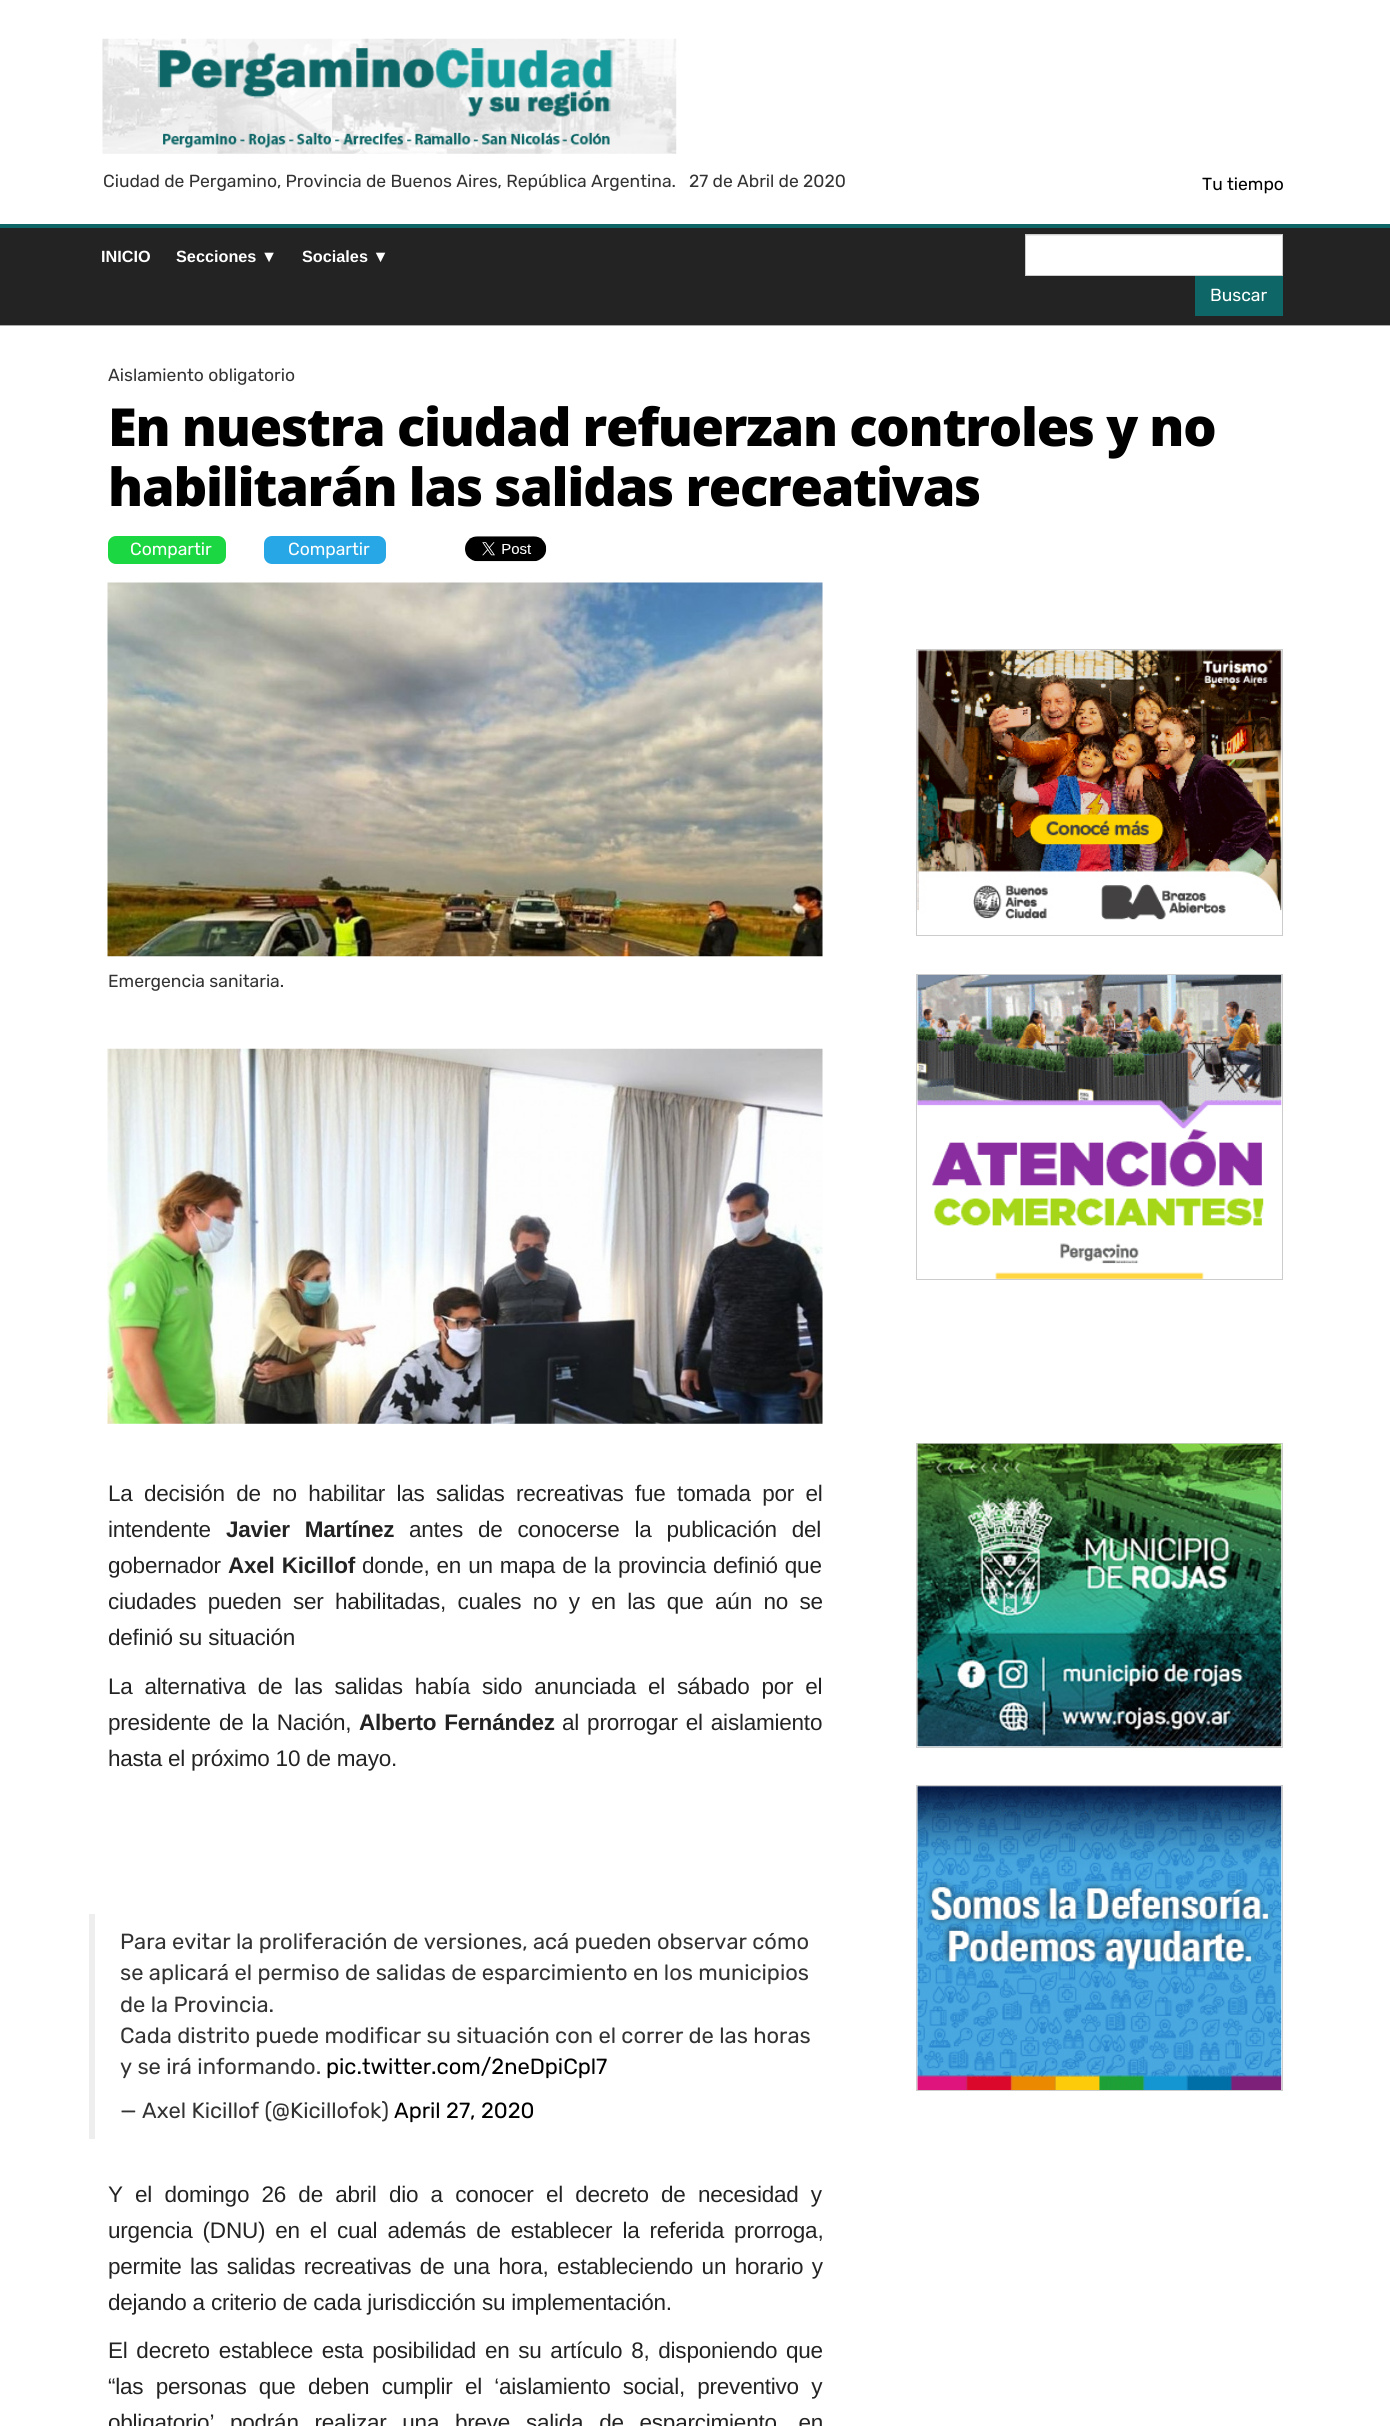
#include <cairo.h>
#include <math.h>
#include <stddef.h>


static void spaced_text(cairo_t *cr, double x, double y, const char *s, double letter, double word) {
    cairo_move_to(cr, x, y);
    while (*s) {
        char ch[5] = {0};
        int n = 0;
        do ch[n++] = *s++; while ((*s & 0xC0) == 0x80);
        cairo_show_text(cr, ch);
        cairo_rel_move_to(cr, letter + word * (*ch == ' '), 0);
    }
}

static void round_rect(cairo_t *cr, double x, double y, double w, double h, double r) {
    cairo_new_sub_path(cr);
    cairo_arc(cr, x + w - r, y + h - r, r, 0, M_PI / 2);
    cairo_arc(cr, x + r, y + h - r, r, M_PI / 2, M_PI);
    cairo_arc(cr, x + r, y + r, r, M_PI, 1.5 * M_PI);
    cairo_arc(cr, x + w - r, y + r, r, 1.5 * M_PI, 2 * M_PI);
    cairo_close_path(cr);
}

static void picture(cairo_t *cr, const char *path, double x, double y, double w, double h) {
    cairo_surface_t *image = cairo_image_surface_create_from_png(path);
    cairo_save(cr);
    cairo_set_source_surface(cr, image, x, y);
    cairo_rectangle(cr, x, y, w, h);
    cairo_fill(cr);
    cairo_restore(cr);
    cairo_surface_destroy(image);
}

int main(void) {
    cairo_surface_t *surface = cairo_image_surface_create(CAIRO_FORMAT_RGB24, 1390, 2426);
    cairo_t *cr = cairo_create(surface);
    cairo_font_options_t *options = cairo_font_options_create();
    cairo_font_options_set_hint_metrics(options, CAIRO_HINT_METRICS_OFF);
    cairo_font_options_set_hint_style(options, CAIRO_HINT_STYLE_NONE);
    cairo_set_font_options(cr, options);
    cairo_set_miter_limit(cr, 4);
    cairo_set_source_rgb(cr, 1, 1, 1);
    cairo_paint(cr);
    cairo_set_source_rgb(cr, 0.055, 0.4, 0.404);
    cairo_rectangle(cr, 0, 224, 1390, 4);
    cairo_fill(cr);
    picture(cr, "img1.png", 102, 38, 575, 116);
    cairo_select_font_face(cr, "Rubik", CAIRO_FONT_SLANT_NORMAL, CAIRO_FONT_WEIGHT_NORMAL);
    cairo_set_font_size(cr, 17.5);
    cairo_set_source_rgb(cr, 0.2, 0.2, 0.2);
    cairo_move_to(cr, 103, 187);
    cairo_show_text(cr, "Ciudad de Pergamino, Provincia de Buenos Aires, República Argentina.");
    cairo_move_to(cr, 689, 187);
    cairo_show_text(cr, "27 de Abril de 2020");
    cairo_set_source_rgb(cr, 0, 0, 0);
    cairo_move_to(cr, 1202, 190);
    cairo_show_text(cr, "Tu tiempo");
    cairo_set_source_rgb(cr, 0.137, 0.137, 0.137);
    cairo_rectangle(cr, 0, 228, 1390, 97);
    cairo_fill(cr);
    cairo_set_source_rgb(cr, 0.671, 0.671, 0.671);
    cairo_rectangle(cr, 0, 325, 1390, 1);
    cairo_fill(cr);
    cairo_select_font_face(cr, "Liberation Sans", CAIRO_FONT_SLANT_NORMAL, CAIRO_FONT_WEIGHT_BOLD);
    cairo_set_font_size(cr, 16.25);
    cairo_set_source_rgb(cr, 1, 1, 1);
    cairo_move_to(cr, 101, 262);
    cairo_show_text(cr, "INICIO");
    cairo_move_to(cr, 176, 262);
    cairo_show_text(cr, "Secciones ▼");
    cairo_move_to(cr, 302, 262);
    cairo_show_text(cr, "Sociales ▼");
    cairo_rectangle(cr, 1026, 235, 256, 40);
    cairo_fill(cr);
    cairo_set_source_rgb(cr, 0.925, 0.925, 0.925);
    cairo_rectangle(cr, 1026, 235, 255, 1);
    cairo_fill(cr);
    cairo_rectangle(cr, 1025.5, 234.5, 257, 41);
    cairo_set_source_rgb(cr, 0.8, 0.8, 0.8);
    cairo_set_line_width(cr, 1);
    cairo_stroke(cr);
    cairo_set_source_rgb(cr, 0.055, 0.4, 0.404);
    cairo_rectangle(cr, 1195, 276, 88, 40);
    cairo_fill(cr);
    cairo_select_font_face(cr, "Rubik", CAIRO_FONT_SLANT_NORMAL, CAIRO_FONT_WEIGHT_NORMAL);
    cairo_set_font_size(cr, 17.5);
    cairo_set_source_rgb(cr, 1, 1, 1);
    cairo_move_to(cr, 1210, 301);
    cairo_show_text(cr, "Buscar");
    cairo_set_source_rgb(cr, 0.2, 0.2, 0.2);
    cairo_move_to(cr, 108, 381);
    cairo_show_text(cr, "Aislamiento obligatorio");
    cairo_select_font_face(cr, "Open Sans ExtraBold", CAIRO_FONT_SLANT_NORMAL, CAIRO_FONT_WEIGHT_NORMAL);
    cairo_set_font_size(cr, 52.5);
    cairo_set_source_rgb(cr, 0, 0, 0);
    spaced_text(cr, 108, 446, "En nuestra ciudad refuerzan controles y no", -1.25, 0);
    spaced_text(cr, 108, 506, "habilitarán las salidas recreativas", -1.25, 0);
    cairo_set_source_rgb(cr, 0.106, 0.843, 0.255);
    round_rect(cr, 108, 536, 118, 28, 8);
    cairo_fill(cr);
    cairo_select_font_face(cr, "Rubik", CAIRO_FONT_SLANT_NORMAL, CAIRO_FONT_WEIGHT_NORMAL);
    cairo_set_font_size(cr, 17.5);
    cairo_set_source_rgb(cr, 1, 1, 1);
    cairo_move_to(cr, 130, 555);
    cairo_show_text(cr, "Compartir");
    cairo_set_source_rgb(cr, 0.153, 0.655, 0.898);
    round_rect(cr, 264, 536, 122, 28, 8);
    cairo_fill(cr);
    cairo_set_source_rgb(cr, 1, 1, 1);
    cairo_move_to(cr, 288, 555);
    cairo_show_text(cr, "Compartir");
    picture(cr, "img2.png", 465, 536, 82, 26);
    picture(cr, "img3.png", 107, 582, 716, 375);
    cairo_set_source_rgb(cr, 0.2, 0.2, 0.2);
    cairo_move_to(cr, 108, 987);
    cairo_show_text(cr, "Emergencia sanitaria.");
    picture(cr, "img4.png", 107, 1048, 716, 376);
    cairo_select_font_face(cr, "Liberation Sans", CAIRO_FONT_SLANT_NORMAL, CAIRO_FONT_WEIGHT_NORMAL);
    cairo_set_font_size(cr, 22.5);
    cairo_set_source_rgb(cr, 0.137, 0.137, 0.137);
    spaced_text(cr, 108, 1501, "La decisión de no habilitar las salidas recreativas fue tomada por el", -0.22, 5.4);
    spaced_text(cr, 108, 1537, "intendente", -0.22, 0);
    cairo_select_font_face(cr, "Liberation Sans", CAIRO_FONT_SLANT_NORMAL, CAIRO_FONT_WEIGHT_BOLD);
    spaced_text(cr, 226, 1537, "Javier Martínez", -0.22, 9);
    cairo_select_font_face(cr, "Liberation Sans", CAIRO_FONT_SLANT_NORMAL, CAIRO_FONT_WEIGHT_NORMAL);
    spaced_text(cr, 409, 1537, "antes de conocerse la publicación del", -0.22, 9);
    spaced_text(cr, 108, 1573, "gobernador", -0.22, 0);
    cairo_select_font_face(cr, "Liberation Sans", CAIRO_FONT_SLANT_NORMAL, CAIRO_FONT_WEIGHT_BOLD);
    spaced_text(cr, 228, 1573, "Axel Kicillof", -0.22, 1);
    cairo_select_font_face(cr, "Liberation Sans", CAIRO_FONT_SLANT_NORMAL, CAIRO_FONT_WEIGHT_NORMAL);
    spaced_text(cr, 362, 1573, "donde, en un mapa de la provincia definió que", -0.22, 1);
    spaced_text(cr, 108, 1609, "ciudades pueden ser habilitadas, cuales no y en las que aún no se", -0.22, 5.4);
    spaced_text(cr, 108, 1645, "definió su situación", -0.22, 0);
    spaced_text(cr, 108, 1694, "La alternativa de las salidas había sido anunciada el sábado por el", -0.22, 5.9);
    spaced_text(cr, 108, 1730, "presidente de la Nación,", -0.22, 2);
    cairo_select_font_face(cr, "Liberation Sans", CAIRO_FONT_SLANT_NORMAL, CAIRO_FONT_WEIGHT_BOLD);
    spaced_text(cr, 359, 1730, "Alberto Fernández", -0.22, 2);
    cairo_select_font_face(cr, "Liberation Sans", CAIRO_FONT_SLANT_NORMAL, CAIRO_FONT_WEIGHT_NORMAL);
    spaced_text(cr, 562, 1730, "al prorrogar el aislamiento", -0.22, 2);
    spaced_text(cr, 108, 1766, "hasta el próximo 10 de mayo.", -0.22, 0);
    cairo_set_source_rgb(cr, 0.933, 0.933, 0.933);
    cairo_rectangle(cr, 89, 1914, 6, 225);
    cairo_fill(cr);
    cairo_select_font_face(cr, "Rubik", CAIRO_FONT_SLANT_NORMAL, CAIRO_FONT_WEIGHT_NORMAL);
    cairo_set_font_size(cr, 21.9);
    cairo_set_source_rgb(cr, 0.2, 0.2, 0.2);
    cairo_move_to(cr, 120, 1949);
    cairo_show_text(cr, "Para evitar la proliferación de versiones, acá pueden observar cómo");
    cairo_move_to(cr, 120, 1980);
    cairo_show_text(cr, "se aplicará el permiso de salidas de esparcimiento en los municipios");
    cairo_move_to(cr, 120, 2012);
    cairo_show_text(cr, "de la Provincia.");
    cairo_move_to(cr, 120, 2043);
    cairo_show_text(cr, "Cada distrito puede modificar su situación con el correr de las horas");
    cairo_move_to(cr, 120, 2074);
    cairo_show_text(cr, "y se irá informando.");
    cairo_set_source_rgb(cr, 0, 0, 0);
    cairo_move_to(cr, 326, 2074);
    cairo_show_text(cr, "pic.twitter.com/2neDpiCpl7");
    cairo_set_source_rgb(cr, 0.2, 0.2, 0.2);
    cairo_move_to(cr, 120, 2118);
    cairo_show_text(cr, "— Axel Kicillof (@Kicillofok)");
    cairo_set_source_rgb(cr, 0, 0, 0);
    cairo_move_to(cr, 394, 2118);
    cairo_show_text(cr, "April 27, 2020");
    cairo_select_font_face(cr, "Liberation Sans", CAIRO_FONT_SLANT_NORMAL, CAIRO_FONT_WEIGHT_NORMAL);
    cairo_set_font_size(cr, 22.5);
    cairo_set_source_rgb(cr, 0.137, 0.137, 0.137);
    spaced_text(cr, 108, 2202, "Y el domingo 26 de abril dio a conocer el decreto de necesidad y", -0.22, 6.25);
    spaced_text(cr, 108, 2238, "urgencia (DNU) en el cual además de establecer la referida prorroga,", -0.22, 4);
    spaced_text(cr, 108, 2274, "permite las salidas recreativas de una hora, estableciendo un horario y", -0.22, 2.5);
    spaced_text(cr, 108, 2310, "dejando a criterio de cada jurisdicción su implementación.", -0.22, 0);
    spaced_text(cr, 108, 2358, "El decreto establece esta posibilidad en su artículo 8, disponiendo que", -0.22, 2.75);
    spaced_text(cr, 108, 2394, "“las personas que deben cumplir el ‘aislamiento social, preventivo y", -0.22, 6.25);
    spaced_text(cr, 108, 2430, "obligatorio’ podrán realizar una breve salida de esparcimiento, en", -0.22, 9.75);
    cairo_rectangle(cr, 916.5, 649.5, 366, 286);
    cairo_set_source_rgb(cr, 0.8, 0.8, 0.8);
    cairo_stroke(cr);
    picture(cr, "img5.png", 917, 650, 365, 270);
    cairo_rectangle(cr, 916.5, 974.5, 366, 305);
    cairo_stroke(cr);
    picture(cr, "img6.png", 917, 975, 365, 304);
    cairo_rectangle(cr, 916.5, 1443.5, 366, 304);
    cairo_stroke(cr);
    picture(cr, "img7.png", 917, 1443, 365, 304);
    cairo_rectangle(cr, 916.5, 1785.5, 366, 305);
    cairo_stroke(cr);
    picture(cr, "img8.png", 917, 1786, 365, 304);
    cairo_surface_write_to_png(surface, "page.png");
    cairo_font_options_destroy(options);
    cairo_destroy(cr);
    cairo_surface_destroy(surface);
    return 0;
}
